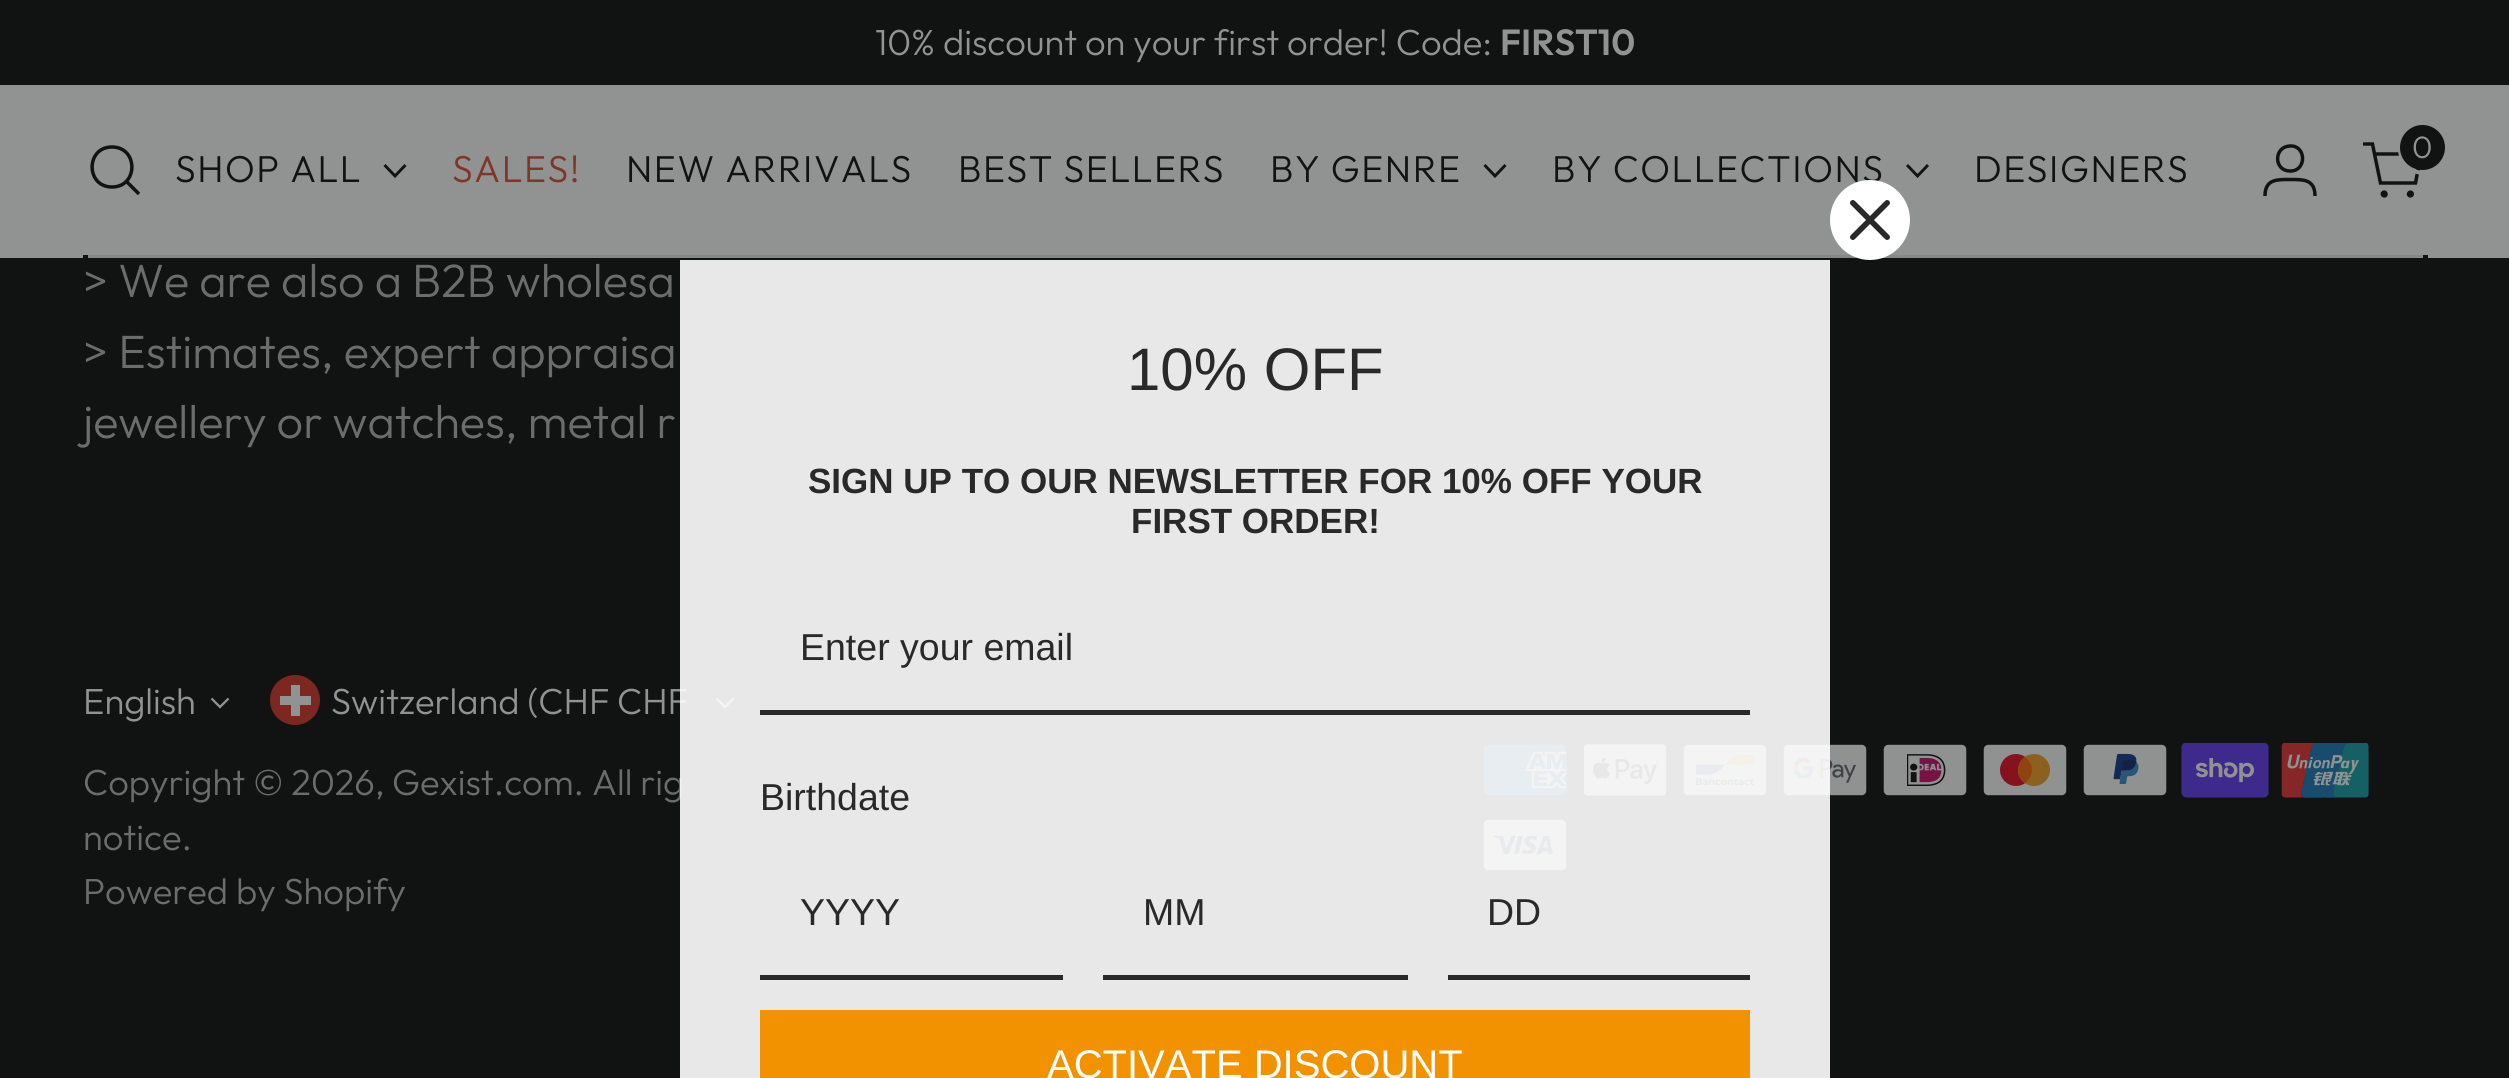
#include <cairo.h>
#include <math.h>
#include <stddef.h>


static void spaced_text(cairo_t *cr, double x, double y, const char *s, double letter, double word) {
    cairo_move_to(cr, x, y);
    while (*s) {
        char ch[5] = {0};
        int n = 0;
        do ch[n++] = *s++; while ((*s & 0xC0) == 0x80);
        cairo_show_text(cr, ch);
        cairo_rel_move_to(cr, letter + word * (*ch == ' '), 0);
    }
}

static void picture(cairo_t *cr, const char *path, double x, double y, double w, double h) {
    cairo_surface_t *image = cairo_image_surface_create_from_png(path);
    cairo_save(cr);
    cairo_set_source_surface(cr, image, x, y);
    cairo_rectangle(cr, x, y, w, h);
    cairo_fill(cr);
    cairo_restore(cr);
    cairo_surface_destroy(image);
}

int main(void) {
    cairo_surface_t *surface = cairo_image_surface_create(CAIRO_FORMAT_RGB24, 2509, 1078);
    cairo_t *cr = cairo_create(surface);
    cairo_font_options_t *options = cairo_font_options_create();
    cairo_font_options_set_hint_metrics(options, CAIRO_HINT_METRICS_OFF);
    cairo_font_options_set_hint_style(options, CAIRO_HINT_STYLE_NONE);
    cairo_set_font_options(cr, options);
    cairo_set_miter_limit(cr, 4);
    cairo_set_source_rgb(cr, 0.067, 0.071, 0.071);
    cairo_paint(cr);
    cairo_select_font_face(cr, "Outfit Light", CAIRO_FONT_SLANT_NORMAL, CAIRO_FONT_WEIGHT_NORMAL);
    cairo_set_font_size(cr, 36.3);
    cairo_set_source_rgb(cr, 0.569, 0.573, 0.573);
    cairo_move_to(cr, 875, 55);
    cairo_show_text(cr, "10% discount on your first order! Code:");
    cairo_select_font_face(cr, "Outfit SemiBold", CAIRO_FONT_SLANT_NORMAL, CAIRO_FONT_WEIGHT_NORMAL);
    cairo_move_to(cr, 1500, 55);
    cairo_show_text(cr, "FIRST10");
    cairo_rectangle(cr, 0, 85, 2509, 173);
    cairo_fill(cr);
    cairo_set_source_rgb(cr, 0.067, 0.071, 0.071);
    cairo_rectangle(cr, 83, 255, 2345, 3);
    cairo_fill(cr);
    cairo_set_source_rgb(cr, 0.525, 0.529, 0.529);
    cairo_rectangle(cr, 88, 255, 2335, 3);
    cairo_fill(cr);
    cairo_new_path(cr);
    cairo_move_to(cr, 112, 187);
    cairo_curve_to(cr, 138.5, 187, 138.5, 147, 112, 147);
    cairo_curve_to(cr, 85.5, 147, 85.5, 187, 112, 187);
    cairo_close_path(cr);
    cairo_set_source_rgb(cr, 0.067, 0.071, 0.071);
    cairo_set_line_width(cr, 3.5);
    cairo_set_line_cap(cr, CAIRO_LINE_CAP_ROUND);
    cairo_stroke(cr);
    cairo_new_path(cr);
    cairo_move_to(cr, 126.5, 181.5);
    cairo_line_to(cr, 139, 194);
    cairo_set_line_cap(cr, CAIRO_LINE_CAP_BUTT);
    cairo_stroke(cr);
    cairo_select_font_face(cr, "Outfit Light", CAIRO_FONT_SLANT_NORMAL, CAIRO_FONT_WEIGHT_NORMAL);
    cairo_set_font_size(cr, 37.5);
    spaced_text(cr, 175, 182, "SHOP ALL", 1.5, 0);
    cairo_new_path(cr);
    cairo_move_to(cr, 384.5, 165);
    cairo_line_to(cr, 395, 176);
    cairo_line_to(cr, 405.5, 165);
    cairo_set_line_width(cr, 2.9);
    cairo_stroke(cr);
    cairo_set_source_rgb(cr, 0.498, 0.212, 0.149);
    spaced_text(cr, 452, 182, "SALES!", 1.5, 0);
    cairo_set_source_rgb(cr, 0.067, 0.071, 0.071);
    spaced_text(cr, 626, 182, "NEW ARRIVALS", 1.5, 0);
    spaced_text(cr, 958, 182, "BEST SELLERS", 1.5, 0);
    spaced_text(cr, 1270, 182, "BY GENRE", 1.5, 0);
    cairo_new_path(cr);
    cairo_move_to(cr, 1484.5, 165);
    cairo_line_to(cr, 1495, 176);
    cairo_line_to(cr, 1505.5, 165);
    cairo_stroke(cr);
    spaced_text(cr, 1552, 182, "BY COLLECTIONS", 1.5, 0);
    cairo_new_path(cr);
    cairo_move_to(cr, 1907, 165);
    cairo_line_to(cr, 1917.5, 176);
    cairo_line_to(cr, 1928, 165);
    cairo_stroke(cr);
    spaced_text(cr, 1974, 182, "DESIGNERS", 1.5, 0);
    cairo_new_path(cr);
    cairo_move_to(cr, 2290, 171);
    cairo_curve_to(cr, 2307, 171.5, 2306.5, 145, 2290, 146);
    cairo_curve_to(cr, 2273.5, 146.5, 2273.5, 171, 2290, 171);
    cairo_close_path(cr);
    cairo_move_to(cr, 2265, 196);
    cairo_curve_to(cr, 2265, 179, 2277, 179.5, 2290, 179.5);
    cairo_curve_to(cr, 2303, 179.5, 2315, 179, 2315, 196);
    cairo_set_line_width(cr, 3.5);
    cairo_stroke(cr);
    cairo_new_path(cr);
    cairo_move_to(cr, 2374.5, 154);
    cairo_line_to(cr, 2421, 154);
    cairo_line_to(cr, 2415.5, 183);
    cairo_line_to(cr, 2380.5, 183);
    cairo_close_path(cr);
    cairo_move_to(cr, 2374.5, 154);
    cairo_line_to(cr, 2372.5, 144);
    cairo_line_to(cr, 2363, 144);
    cairo_stroke(cr);
    cairo_arc(cr, 2424, 149, 24, 0, 2 * M_PI);
    cairo_set_source_rgb(cr, 0.569, 0.573, 0.573);
    cairo_set_line_width(cr, 4);
    cairo_stroke(cr);
    cairo_set_source_rgb(cr, 0.067, 0.071, 0.071);
    cairo_arc(cr, 2422.5, 147.5, 22.5, 0, 2 * M_PI);
    cairo_fill(cr);
    cairo_set_font_size(cr, 31);
    cairo_set_source_rgb(cr, 0.569, 0.573, 0.573);
    cairo_move_to(cr, 2412, 158);
    cairo_show_text(cr, "0");
    cairo_new_path(cr);
    cairo_move_to(cr, 2383, 192.5);
    cairo_curve_to(cr, 2385, 191, 2387, 194, 2385.5, 195.5);
    cairo_curve_to(cr, 2383.5, 197, 2381, 194, 2383, 192.5);
    cairo_close_path(cr);
    cairo_move_to(cr, 2409.5, 192.5);
    cairo_curve_to(cr, 2411, 191, 2413.5, 194, 2411.5, 195.5);
    cairo_curve_to(cr, 2409.5, 197, 2407, 194, 2409.5, 192.5);
    cairo_close_path(cr);
    cairo_set_source_rgb(cr, 0.067, 0.071, 0.071);
    cairo_set_line_width(cr, 3.5);
    cairo_set_line_cap(cr, CAIRO_LINE_CAP_ROUND);
    cairo_set_line_join(cr, CAIRO_LINE_JOIN_BEVEL);
    cairo_stroke(cr);
    cairo_set_font_size(cr, 46.75);
    cairo_set_source_rgb(cr, 0.42, 0.424, 0.424);
    cairo_move_to(cr, 83, 297);
    cairo_show_text(cr, "> We are also a B2B wholesa");
    cairo_move_to(cr, 83, 368);
    cairo_show_text(cr, "> Estimates, expert appraisa");
    cairo_move_to(cr, 83, 438);
    cairo_show_text(cr, "jewellery or watches, metal r");
    cairo_set_font_size(cr, 36.3);
    cairo_set_source_rgb(cr, 0.569, 0.573, 0.573);
    cairo_move_to(cr, 83, 714);
    cairo_show_text(cr, "English");
    cairo_new_path(cr);
    cairo_move_to(cr, 211.5, 698.5);
    cairo_line_to(cr, 220, 707);
    cairo_line_to(cr, 228.5, 698.5);
    cairo_set_line_width(cr, 2.3);
    cairo_set_line_cap(cr, CAIRO_LINE_CAP_BUTT);
    cairo_set_line_join(cr, CAIRO_LINE_JOIN_MITER);
    cairo_stroke(cr);
    cairo_set_source_rgb(cr, 0.486, 0.157, 0.129);
    cairo_arc(cr, 295, 700, 25, 0, 2 * M_PI);
    cairo_fill(cr);
    cairo_set_source_rgb(cr, 0.569, 0.573, 0.573);
    cairo_rectangle(cr, 280, 696, 31, 9);
    cairo_fill(cr);
    cairo_rectangle(cr, 291, 685, 9, 31);
    cairo_fill(cr);
    cairo_move_to(cr, 331, 714);
    cairo_show_text(cr, "Switzerland (CHF");
    cairo_move_to(cr, 617, 714);
    cairo_show_text(cr, "CHF");
    cairo_new_path(cr);
    cairo_move_to(cr, 716.5, 698.5);
    cairo_line_to(cr, 725, 707);
    cairo_line_to(cr, 733.5, 698.5);
    cairo_stroke(cr);
    cairo_set_source_rgb(cr, 0.42, 0.424, 0.424);
    cairo_move_to(cr, 83, 795);
    cairo_show_text(cr, "Copyright © 2026,");
    cairo_move_to(cr, 392, 795);
    cairo_show_text(cr, "Gexist.com.");
    cairo_move_to(cr, 592, 795);
    cairo_show_text(cr, "All rig");
    cairo_move_to(cr, 83, 850);
    cairo_show_text(cr, "notice.");
    cairo_move_to(cr, 83, 904);
    cairo_show_text(cr, "Powered by Shopify");
    picture(cr, "img1.png", 1483, 744, 84, 52);
    picture(cr, "img2.png", 1583, 744, 84, 52);
    picture(cr, "img3.png", 1683, 744, 84, 52);
    picture(cr, "img4.png", 1783, 744, 84, 52);
    picture(cr, "img5.png", 1883, 744, 84, 52);
    picture(cr, "img6.png", 1983, 744, 84, 52);
    picture(cr, "img7.png", 2083, 744, 84, 52);
    picture(cr, "img8.png", 2181, 743, 88, 55);
    picture(cr, "img9.png", 2281, 743, 88, 55);
    picture(cr, "img10.png", 1483, 819, 84, 52);
    cairo_set_source_rgb(cr, 1, 1, 1);
    cairo_arc(cr, 1870, 220, 40, 0, 2 * M_PI);
    cairo_fill(cr);
    picture(cr, "img11.png", 1850, 200, 40, 40);
    cairo_set_source_rgba(cr, 1, 1, 1, 0.9);
    cairo_rectangle(cr, 680, 260, 1150, 818);
    cairo_fill(cr);
    cairo_select_font_face(cr, "Liberation Sans", CAIRO_FONT_SLANT_NORMAL, CAIRO_FONT_WEIGHT_NORMAL);
    cairo_set_font_size(cr, 60);
    cairo_set_source_rgb(cr, 0.161, 0.161, 0.161);
    cairo_move_to(cr, 1127, 390);
    cairo_show_text(cr, "10% OFF");
    cairo_select_font_face(cr, "Liberation Sans", CAIRO_FONT_SLANT_NORMAL, CAIRO_FONT_WEIGHT_BOLD);
    cairo_set_font_size(cr, 35);
    cairo_move_to(cr, 808, 493);
    cairo_show_text(cr, "SIGN UP TO OUR NEWSLETTER FOR 10% OFF YOUR");
    cairo_move_to(cr, 1131, 533);
    cairo_show_text(cr, "FIRST ORDER!");
    cairo_rectangle(cr, 760, 710, 990, 5);
    cairo_fill(cr);
    cairo_select_font_face(cr, "Liberation Sans", CAIRO_FONT_SLANT_NORMAL, CAIRO_FONT_WEIGHT_NORMAL);
    cairo_set_font_size(cr, 37.5);
    cairo_move_to(cr, 800, 660);
    cairo_show_text(cr, "Enter your email");
    cairo_move_to(cr, 760, 810);
    cairo_show_text(cr, "Birthdate");
    cairo_rectangle(cr, 760, 975, 303, 5);
    cairo_fill(cr);
    cairo_move_to(cr, 800, 925);
    cairo_show_text(cr, "YYYY");
    cairo_rectangle(cr, 1103, 975, 305, 5);
    cairo_fill(cr);
    cairo_move_to(cr, 1143, 925);
    cairo_show_text(cr, "MM");
    cairo_rectangle(cr, 1448, 975, 302, 5);
    cairo_fill(cr);
    cairo_move_to(cr, 1487, 925);
    cairo_show_text(cr, "DD");
    cairo_set_source_rgb(cr, 0.953, 0.573, 0);
    cairo_rectangle(cr, 760, 1010, 990, 68);
    cairo_fill(cr);
    cairo_set_font_size(cr, 40);
    cairo_set_source_rgb(cr, 1, 1, 1);
    cairo_move_to(cr, 1047, 1078);
    cairo_show_text(cr, "ACTIVATE DISCOUNT");
    cairo_surface_write_to_png(surface, "page.png");
    cairo_font_options_destroy(options);
    cairo_destroy(cr);
    cairo_surface_destroy(surface);
    return 0;
}
